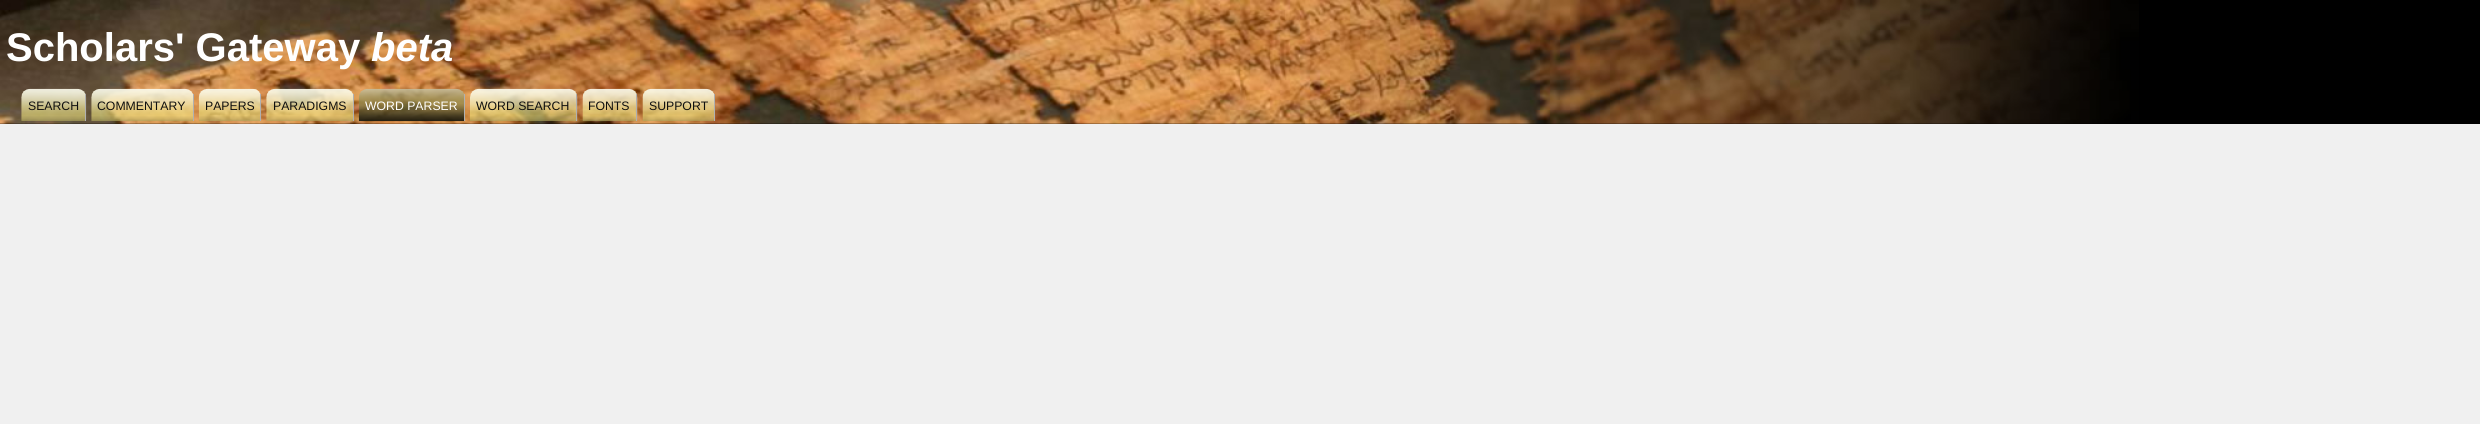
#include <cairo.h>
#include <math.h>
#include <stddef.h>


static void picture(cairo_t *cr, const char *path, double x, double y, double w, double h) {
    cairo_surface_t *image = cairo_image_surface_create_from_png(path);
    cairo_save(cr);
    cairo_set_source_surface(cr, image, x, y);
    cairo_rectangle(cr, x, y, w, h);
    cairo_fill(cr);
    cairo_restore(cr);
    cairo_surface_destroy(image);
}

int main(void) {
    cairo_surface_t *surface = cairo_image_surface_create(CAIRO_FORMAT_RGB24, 2480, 424);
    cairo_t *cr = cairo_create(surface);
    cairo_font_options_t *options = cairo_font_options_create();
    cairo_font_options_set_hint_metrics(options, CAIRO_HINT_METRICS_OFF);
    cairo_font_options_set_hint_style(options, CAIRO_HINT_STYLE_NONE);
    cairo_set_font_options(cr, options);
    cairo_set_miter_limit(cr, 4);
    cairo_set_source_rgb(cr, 0.941, 0.941, 0.941);
    cairo_paint(cr);
    cairo_set_source_rgb(cr, 0, 0, 0);
    cairo_rectangle(cr, 0, 0, 2480, 124);
    cairo_fill(cr);
    picture(cr, "img1.png", 0, 0, 2139, 124);
    cairo_select_font_face(cr, "Liberation Sans", CAIRO_FONT_SLANT_NORMAL, CAIRO_FONT_WEIGHT_BOLD);
    cairo_set_font_size(cr, 40);
    cairo_set_source_rgb(cr, 1, 1, 1);
    cairo_move_to(cr, 6, 61);
    cairo_show_text(cr, "Scholars' Gateway");
    cairo_select_font_face(cr, "Liberation Sans", CAIRO_FONT_SLANT_ITALIC, CAIRO_FONT_WEIGHT_BOLD);
    cairo_move_to(cr, 371, 61);
    cairo_show_text(cr, "beta");
    picture(cr, "img2.png", 21, 88, 66, 33);
    cairo_set_source_rgb(cr, 0.69, 0.69, 0.69);
    cairo_rectangle(cr, 85, 94, 1, 27);
    cairo_fill(cr);
    cairo_select_font_face(cr, "Liberation Sans", CAIRO_FONT_SLANT_NORMAL, CAIRO_FONT_WEIGHT_NORMAL);
    cairo_set_font_size(cr, 12.25);
    cairo_set_source_rgb(cr, 0.059, 0.059, 0.059);
    cairo_move_to(cr, 28, 110);
    cairo_show_text(cr, "SEARCH");
    picture(cr, "img3.png", 91, 88, 103, 34);
    cairo_set_source_rgb(cr, 0.69, 0.69, 0.69);
    cairo_rectangle(cr, 193, 94, 1, 27);
    cairo_fill(cr);
    cairo_set_source_rgb(cr, 0.059, 0.059, 0.059);
    cairo_move_to(cr, 97, 110);
    cairo_show_text(cr, "COMMENTARY");
    picture(cr, "img4.png", 198, 88, 64, 33);
    cairo_set_source_rgb(cr, 0.69, 0.69, 0.69);
    cairo_rectangle(cr, 260, 94, 1, 27);
    cairo_fill(cr);
    cairo_set_source_rgb(cr, 0.059, 0.059, 0.059);
    cairo_move_to(cr, 205, 110);
    cairo_show_text(cr, "PAPERS");
    picture(cr, "img5.png", 266, 88, 87, 33);
    cairo_set_source_rgb(cr, 0.69, 0.69, 0.69);
    cairo_rectangle(cr, 353, 94, 1, 27);
    cairo_fill(cr);
    cairo_set_source_rgb(cr, 0.059, 0.059, 0.059);
    cairo_move_to(cr, 273, 110);
    cairo_show_text(cr, "PARADIGMS");
    picture(cr, "img6.png", 358, 88, 107, 34);
    cairo_set_source_rgb(cr, 0.69, 0.69, 0.69);
    cairo_rectangle(cr, 464, 94, 1, 27);
    cairo_fill(cr);
    cairo_set_source_rgb(cr, 1, 1, 1);
    cairo_move_to(cr, 365, 110);
    cairo_show_text(cr, "WORD PARSER");
    picture(cr, "img7.png", 470, 88, 108, 34);
    cairo_set_source_rgb(cr, 0.69, 0.69, 0.69);
    cairo_rectangle(cr, 576, 94, 1, 27);
    cairo_fill(cr);
    cairo_set_source_rgb(cr, 0.059, 0.059, 0.059);
    cairo_move_to(cr, 476, 110);
    cairo_show_text(cr, "WORD SEARCH");
    picture(cr, "img8.png", 582, 88, 56, 34);
    cairo_set_source_rgb(cr, 0.69, 0.69, 0.69);
    cairo_rectangle(cr, 636, 94, 1, 27);
    cairo_fill(cr);
    cairo_set_source_rgb(cr, 0.059, 0.059, 0.059);
    cairo_move_to(cr, 588, 110);
    cairo_show_text(cr, "FONTS");
    picture(cr, "img9.png", 642, 88, 73, 33);
    cairo_set_source_rgb(cr, 0.69, 0.69, 0.69);
    cairo_rectangle(cr, 714, 94, 1, 27);
    cairo_fill(cr);
    cairo_set_source_rgb(cr, 0.059, 0.059, 0.059);
    cairo_move_to(cr, 649, 110);
    cairo_show_text(cr, "SUPPORT");
    cairo_surface_write_to_png(surface, "page.png");
    cairo_font_options_destroy(options);
    cairo_destroy(cr);
    cairo_surface_destroy(surface);
    return 0;
}
